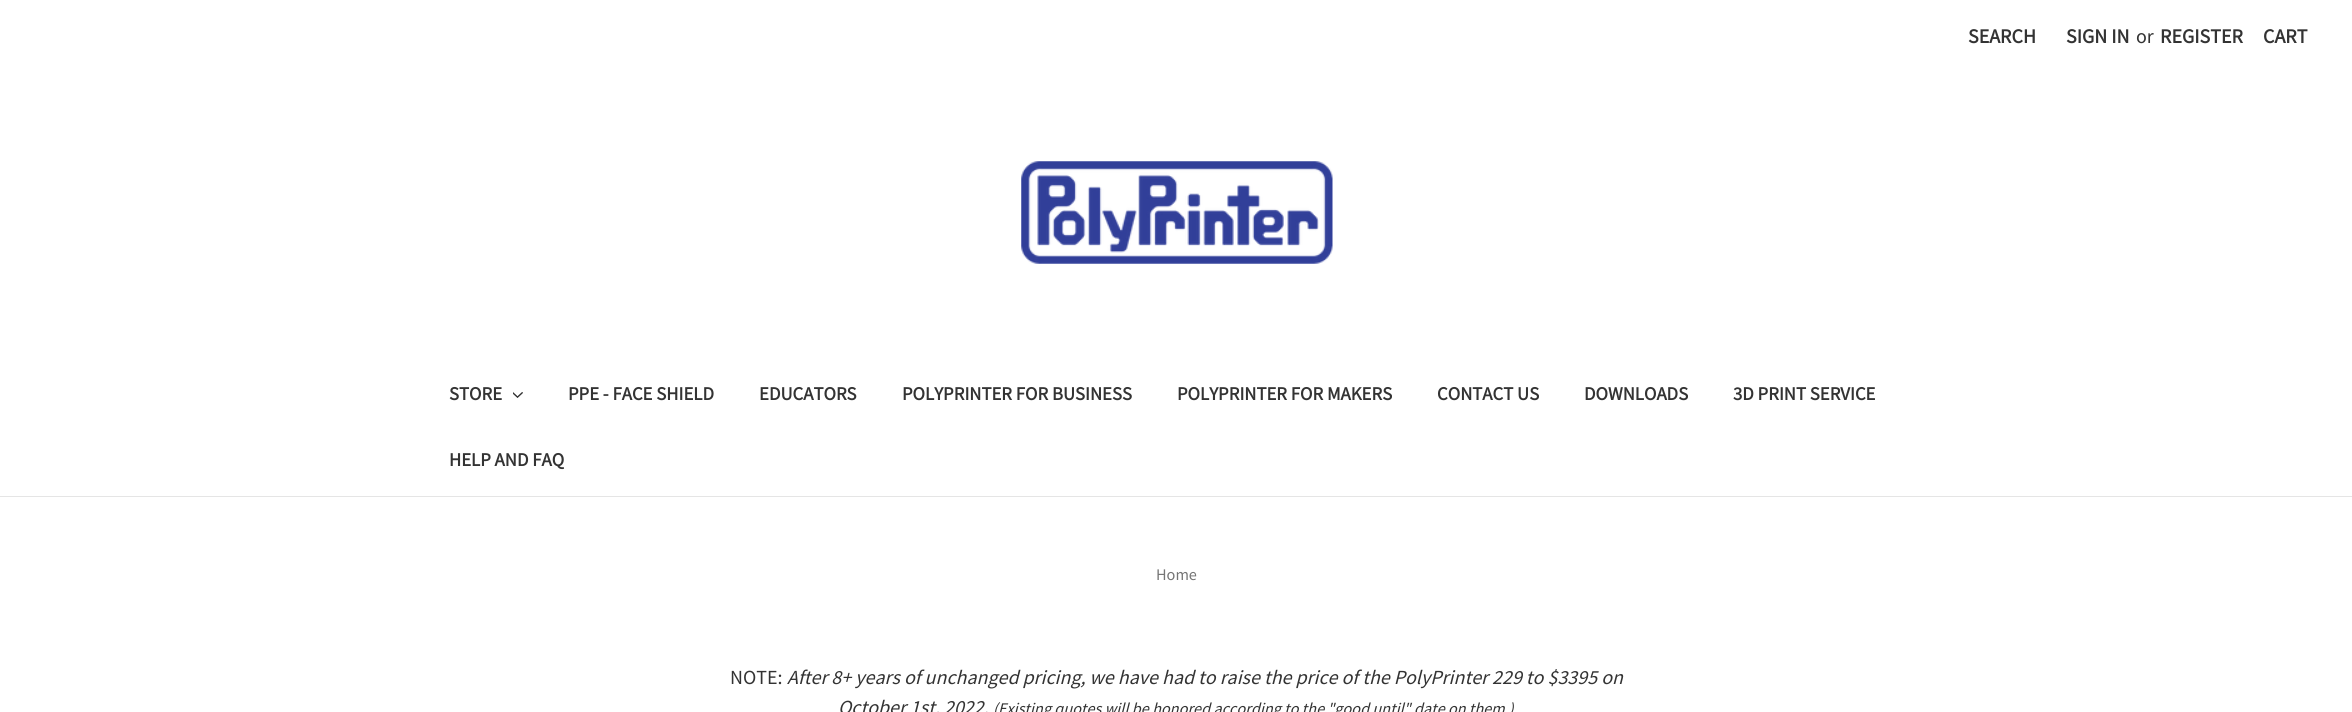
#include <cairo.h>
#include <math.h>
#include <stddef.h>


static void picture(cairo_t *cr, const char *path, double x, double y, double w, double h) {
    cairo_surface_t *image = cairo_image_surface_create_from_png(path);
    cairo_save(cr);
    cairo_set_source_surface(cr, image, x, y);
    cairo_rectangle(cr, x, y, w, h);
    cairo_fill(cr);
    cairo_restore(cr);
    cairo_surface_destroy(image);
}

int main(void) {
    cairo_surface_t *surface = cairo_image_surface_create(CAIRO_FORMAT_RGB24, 2352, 712);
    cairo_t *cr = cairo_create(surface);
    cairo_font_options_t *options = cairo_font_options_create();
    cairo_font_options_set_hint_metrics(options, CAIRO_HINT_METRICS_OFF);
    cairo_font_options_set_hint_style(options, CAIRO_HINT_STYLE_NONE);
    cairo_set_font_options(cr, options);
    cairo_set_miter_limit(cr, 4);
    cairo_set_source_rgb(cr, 1, 1, 1);
    cairo_paint(cr);
    cairo_set_source_rgb(cr, 0.898, 0.898, 0.898);
    cairo_rectangle(cr, 0, 496, 2352, 1);
    cairo_fill(cr);
    cairo_select_font_face(cr, "Source Sans Pro", CAIRO_FONT_SLANT_NORMAL, CAIRO_FONT_WEIGHT_BOLD);
    cairo_set_font_size(cr, 20);
    cairo_set_source_rgb(cr, 0.2, 0.2, 0.2);
    cairo_move_to(cr, 1968, 43);
    cairo_show_text(cr, "SEARCH");
    cairo_move_to(cr, 2066, 43);
    cairo_show_text(cr, "SIGN IN");
    cairo_select_font_face(cr, "Source Sans Pro", CAIRO_FONT_SLANT_NORMAL, CAIRO_FONT_WEIGHT_NORMAL);
    cairo_move_to(cr, 2136, 43);
    cairo_show_text(cr, "or");
    cairo_select_font_face(cr, "Source Sans Pro", CAIRO_FONT_SLANT_NORMAL, CAIRO_FONT_WEIGHT_BOLD);
    cairo_move_to(cr, 2160, 43);
    cairo_show_text(cr, "REGISTER");
    cairo_move_to(cr, 2263, 43);
    cairo_show_text(cr, "CART");
    picture(cr, "img1.png", 1021, 161, 312, 103);
    cairo_set_font_size(cr, 18.75);
    cairo_move_to(cr, 449, 400);
    cairo_show_text(cr, "STORE");
    picture(cr, "img2.png", 513, 392, 10, 6);
    cairo_move_to(cr, 568, 400);
    cairo_show_text(cr, "PPE - FACE SHIELD");
    cairo_move_to(cr, 759, 400);
    cairo_show_text(cr, "EDUCATORS");
    cairo_move_to(cr, 902, 400);
    cairo_show_text(cr, "POLYPRINTER FOR BUSINESS");
    cairo_move_to(cr, 1177, 400);
    cairo_show_text(cr, "POLYPRINTER FOR MAKERS");
    cairo_move_to(cr, 1437, 400);
    cairo_show_text(cr, "CONTACT US");
    cairo_move_to(cr, 1584, 400);
    cairo_show_text(cr, "DOWNLOADS");
    cairo_move_to(cr, 1733, 400);
    cairo_show_text(cr, "3D PRINT SERVICE");
    cairo_move_to(cr, 449, 466);
    cairo_show_text(cr, "HELP AND FAQ");
    cairo_select_font_face(cr, "Source Sans Pro", CAIRO_FONT_SLANT_NORMAL, CAIRO_FONT_WEIGHT_NORMAL);
    cairo_set_font_size(cr, 16.25);
    cairo_set_source_rgb(cr, 0.459, 0.459, 0.459);
    cairo_move_to(cr, 1156, 580);
    cairo_show_text(cr, "Home");
    cairo_set_font_size(cr, 20);
    cairo_set_source_rgb(cr, 0.2, 0.2, 0.2);
    cairo_move_to(cr, 730, 684);
    cairo_show_text(cr, "NOTE:");
    cairo_select_font_face(cr, "Source Sans Pro", CAIRO_FONT_SLANT_ITALIC, CAIRO_FONT_WEIGHT_NORMAL);
    cairo_move_to(cr, 787, 684);
    cairo_show_text(cr, "After 8+ years of unchanged pricing, we have had to raise the price of the PolyPrinter 229 to $3395 on");
    cairo_move_to(cr, 838, 714);
    cairo_show_text(cr, "October 1st, 2022.");
    cairo_set_font_size(cr, 16.25);
    cairo_move_to(cr, 993, 714);
    cairo_show_text(cr, "(Existing quotes will be honored according to the \"good until\" date on them.)");
    cairo_surface_write_to_png(surface, "page.png");
    cairo_font_options_destroy(options);
    cairo_destroy(cr);
    cairo_surface_destroy(surface);
    return 0;
}
